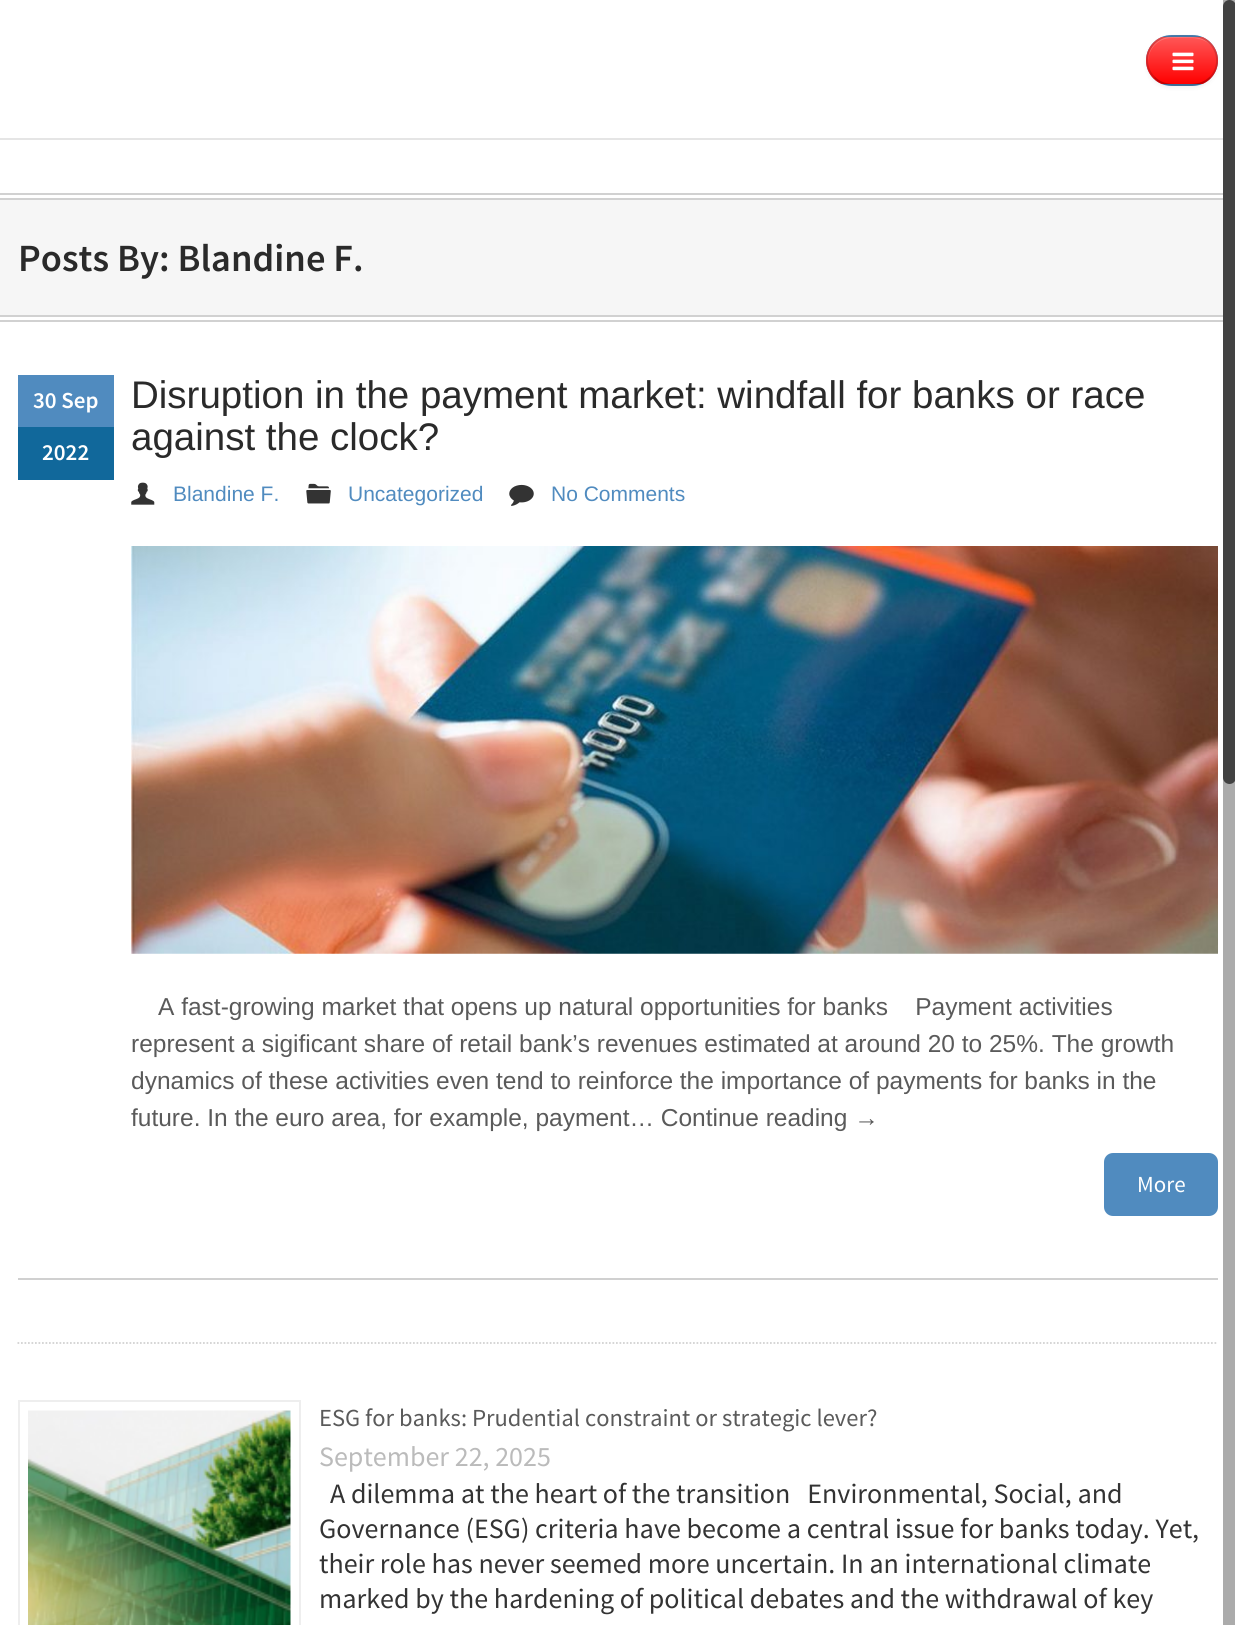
#include <cairo.h>
#include <math.h>
#include <stddef.h>


static void round_rect(cairo_t *cr, double x, double y, double w, double h, double r) {
    cairo_new_sub_path(cr);
    cairo_arc(cr, x + w - r, y + h - r, r, 0, M_PI / 2);
    cairo_arc(cr, x + r, y + h - r, r, M_PI / 2, M_PI);
    cairo_arc(cr, x + r, y + r, r, M_PI, 1.5 * M_PI);
    cairo_arc(cr, x + w - r, y + r, r, 1.5 * M_PI, 2 * M_PI);
    cairo_close_path(cr);
}

static void shadow(cairo_t *cr, double x, double y, double w, double h, double r, double blur, double alpha) {
    cairo_push_group_with_content(cr, CAIRO_CONTENT_ALPHA);
    cairo_set_operator(cr, CAIRO_OPERATOR_SOURCE);
    for (int i = 15; i >= -15 && fmin(w, h) + blur * i / 3 > 0; i -= 2) {
        double e = blur * i / 6;
        cairo_set_source_rgba(cr, 0, 0, 0, alpha * erfc((i - 1) / 8.5) / 2);
        round_rect(cr, x - e, y - e, w + 2 * e, h + 2 * e, fmax(0, fmin(r + e + blur * .6, fmin(w, h) / 2 + e)));
        cairo_fill(cr);
    }
    cairo_pattern_t *soft = cairo_pop_group(cr);
    cairo_mask(cr, soft);
    cairo_pattern_destroy(soft);
}

static void picture(cairo_t *cr, const char *path, double x, double y, double w, double h) {
    cairo_surface_t *image = cairo_image_surface_create_from_png(path);
    cairo_save(cr);
    cairo_set_source_surface(cr, image, x, y);
    cairo_rectangle(cr, x, y, w, h);
    cairo_fill(cr);
    cairo_restore(cr);
    cairo_surface_destroy(image);
}

int main(void) {
    cairo_surface_t *surface = cairo_image_surface_create(CAIRO_FORMAT_RGB24, 1235, 1625);
    cairo_t *cr = cairo_create(surface);
    cairo_font_options_t *options = cairo_font_options_create();
    cairo_font_options_set_hint_metrics(options, CAIRO_HINT_METRICS_OFF);
    cairo_font_options_set_hint_style(options, CAIRO_HINT_STYLE_NONE);
    cairo_set_font_options(cr, options);
    cairo_set_miter_limit(cr, 4);
    cairo_pattern_t *gradient;
    cairo_set_source_rgb(cr, 1, 1, 1);
    cairo_paint(cr);
    cairo_set_source_rgb(cr, 0.671, 0.671, 0.671);
    cairo_rectangle(cr, 1223, 0, 12, 1625);
    cairo_fill(cr);
    cairo_set_source_rgb(cr, 0.898, 0.898, 0.898);
    cairo_rectangle(cr, 0, 138, 1223, 2);
    cairo_fill(cr);
    cairo_set_source_rgb(cr, 0, 0, 0);
    shadow(cr, 1146, 37, 72, 51, 25.5, 2, 0.05);
    cairo_set_source_rgb(cr, 0.314, 0.545, 0.749);
    round_rect(cr, 1146, 35, 72, 51, 25.5);
    cairo_fill(cr);
    cairo_save(cr);
    round_rect(cr, 1146, 35, 72, 51, 25.5);
    cairo_clip(cr);
    gradient = cairo_pattern_create_linear(1182, 37, 1182, 84);
    cairo_pattern_add_color_stop_rgba(gradient, 0, 1, 0.341, 0.341, 1);
    cairo_pattern_add_color_stop_rgba(gradient, 1, 1, 0, 0, 1);
    cairo_set_source(cr, gradient);
    cairo_pattern_destroy(gradient);
    cairo_rectangle(cr, 1146, 37, 72, 47);
    cairo_fill(cr);
    cairo_restore(cr);
    cairo_set_source_rgba(cr, 1, 1, 1, 0.2);
    cairo_new_path(cr);
    cairo_move_to(cr, 1172, 38);
    cairo_curve_to(cr, 1186, 38, 1204, 35, 1213, 48);
    cairo_curve_to(cr, 1205, 36, 1194, 37, 1182, 37);
    cairo_line_to(cr, 1167, 37);
    cairo_curve_to(cr, 1155, 40, 1147, 51, 1148, 62);
    cairo_curve_to(cr, 1148, 50, 1157, 38, 1172, 38);
    cairo_close_path(cr);
    cairo_fill(cr);
    cairo_new_path(cr);
    cairo_move_to(cr, 1210, 77.5);
    cairo_curve_to(cr, 1202, 85.5, 1192.5, 85, 1182, 85);
    cairo_curve_to(cr, 1172, 85, 1162, 85.5, 1154.5, 77.5);
    cairo_set_source_rgba(cr, 0, 0, 0, 0.25);
    cairo_set_line_width(cr, 1.8);
    cairo_stroke(cr);
    cairo_new_path(cr);
    cairo_move_to(cr, 1154.5, 77.5);
    cairo_curve_to(cr, 1148.5, 72, 1146, 63.5, 1147.5, 55.5);
    cairo_curve_to(cr, 1149.5, 46, 1157, 38.5, 1167, 36.5);
    cairo_line_to(cr, 1182, 36);
    cairo_line_to(cr, 1197.5, 36.5);
    cairo_curve_to(cr, 1208.5, 38.5, 1217, 49, 1217, 60.5);
    cairo_curve_to(cr, 1217, 67, 1214.5, 73, 1210, 77.5);
    cairo_set_source_rgba(cr, 0, 0, 0, 0.15);
    cairo_stroke(cr);
    picture(cr, "img1.png", 1172, 52, 22, 19);
    cairo_set_source_rgb(cr, 0.259, 0.259, 0.259);
    round_rect(cr, 1223, 0, 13, 784, 6.5);
    cairo_fill(cr);
    cairo_set_source_rgb(cr, 0.82, 0.82, 0.82);
    cairo_rectangle(cr, 0, 193, 1223, 2);
    cairo_fill(cr);
    cairo_rectangle(cr, 0, 320, 1223, 2);
    cairo_fill(cr);
    cairo_rectangle(cr, 0, 198, 1223, 2);
    cairo_fill(cr);
    cairo_set_source_rgb(cr, 0.961, 0.961, 0.961);
    cairo_rectangle(cr, 0, 200, 1223, 115);
    cairo_fill(cr);
    cairo_select_font_face(cr, "Source Sans Pro SemiBold", CAIRO_FONT_SLANT_NORMAL, CAIRO_FONT_WEIGHT_NORMAL);
    cairo_set_font_size(cr, 38.5);
    cairo_set_source_rgb(cr, 0.165, 0.165, 0.165);
    cairo_move_to(cr, 18, 271);
    cairo_show_text(cr, "Posts By: Blandine F.");
    cairo_set_source_rgb(cr, 0.82, 0.82, 0.82);
    cairo_rectangle(cr, 0, 315, 1223, 2);
    cairo_fill(cr);
    cairo_set_source_rgb(cr, 0.816, 0.816, 0.816);
    cairo_rectangle(cr, 18, 1278, 1200, 2);
    cairo_fill(cr);
    cairo_set_source_rgb(cr, 0.314, 0.545, 0.749);
    cairo_rectangle(cr, 18, 375, 96, 52);
    cairo_fill(cr);
    cairo_set_font_size(cr, 23);
    cairo_set_source_rgb(cr, 1, 1, 1);
    cairo_move_to(cr, 33, 408);
    cairo_show_text(cr, "30 Sep");
    cairo_set_source_rgb(cr, 0.067, 0.408, 0.608);
    cairo_rectangle(cr, 18, 427, 96, 53);
    cairo_fill(cr);
    cairo_set_source_rgb(cr, 1, 1, 1);
    cairo_move_to(cr, 42, 460);
    cairo_show_text(cr, "2022");
    cairo_select_font_face(cr, "Liberation Sans", CAIRO_FONT_SLANT_NORMAL, CAIRO_FONT_WEIGHT_NORMAL);
    cairo_set_font_size(cr, 38.5);
    cairo_set_source_rgb(cr, 0.165, 0.165, 0.165);
    cairo_move_to(cr, 131, 408);
    cairo_show_text(cr, "Disruption in the payment market: windfall for banks or race");
    cairo_move_to(cr, 131, 450);
    cairo_show_text(cr, "against the clock?");
    picture(cr, "img2.png", 131, 482, 24, 23);
    cairo_set_font_size(cr, 21);
    cairo_set_source_rgb(cr, 0.314, 0.545, 0.749);
    cairo_move_to(cr, 173, 501);
    cairo_show_text(cr, "Blandine F.");
    picture(cr, "img3.png", 306, 483, 25, 21);
    cairo_move_to(cr, 348, 501);
    cairo_show_text(cr, "Uncategorized");
    picture(cr, "img4.png", 509, 484, 25, 22);
    cairo_move_to(cr, 551, 501);
    cairo_show_text(cr, "No Comments");
    picture(cr, "img5.png", 131, 546, 1087, 408);
    cairo_set_font_size(cr, 24.5);
    cairo_set_source_rgb(cr, 0.353, 0.353, 0.353);
    cairo_move_to(cr, 158, 1015);
    cairo_show_text(cr, "A fast-growing market that opens up natural opportunities for banks    Payment activities");
    cairo_move_to(cr, 131, 1052);
    cairo_show_text(cr, "represent a sigificant share of retail bank’s revenues estimated at around 20 to 25%. The growth");
    cairo_move_to(cr, 131, 1089);
    cairo_show_text(cr, "dynamics of these activities even tend to reinforce the importance of payments for banks in the");
    cairo_move_to(cr, 131, 1126);
    cairo_show_text(cr, "future. In the euro area, for example, payment… Continue reading →");
    cairo_set_source_rgb(cr, 0.314, 0.545, 0.749);
    round_rect(cr, 1104, 1153, 114, 63, 9);
    cairo_fill(cr);
    cairo_select_font_face(cr, "Source Sans Pro", CAIRO_FONT_SLANT_NORMAL, CAIRO_FONT_WEIGHT_NORMAL);
    cairo_set_font_size(cr, 23);
    cairo_set_source_rgb(cr, 1, 1, 1);
    cairo_move_to(cr, 1137, 1192);
    cairo_show_text(cr, "More");
    cairo_new_path(cr);
    cairo_move_to(cr, 17.5, 1343);
    cairo_line_to(cr, 1218, 1343);
    cairo_set_source_rgb(cr, 0.824, 0.824, 0.824);
    cairo_set_dash(cr, (double[]){1.75, 1.75}, 2, 0);
    cairo_stroke(cr);
    cairo_rectangle(cr, 19, 1401, 281, 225);
    cairo_set_source_rgb(cr, 0.933, 0.933, 0.933);
    cairo_set_line_width(cr, 2);
    cairo_set_dash(cr, NULL, 0, 0);
    cairo_stroke(cr);
    picture(cr, "img6.png", 28, 1410, 263, 215);
    cairo_set_font_size(cr, 24.5);
    cairo_set_source_rgb(cr, 0.353, 0.353, 0.353);
    cairo_move_to(cr, 319, 1426);
    cairo_show_text(cr, "ESG for banks: Prudential constraint or strategic lever?");
    cairo_set_font_size(cr, 28);
    cairo_set_source_rgb(cr, 0.733, 0.733, 0.733);
    cairo_move_to(cr, 319, 1466);
    cairo_show_text(cr, "September 22, 2025");
    cairo_set_source_rgb(cr, 0.2, 0.2, 0.2);
    cairo_move_to(cr, 330, 1503);
    cairo_show_text(cr, "A dilemma at the heart of the transition   Environmental, Social, and");
    cairo_move_to(cr, 319, 1538);
    cairo_show_text(cr, "Governance (ESG) criteria have become a central issue for banks today. Yet,");
    cairo_move_to(cr, 319, 1573);
    cairo_show_text(cr, "their role has never seemed more uncertain. In an international climate");
    cairo_move_to(cr, 319, 1608);
    cairo_show_text(cr, "marked by the hardening of political debates and the withdrawal of key");
    cairo_surface_write_to_png(surface, "page.png");
    cairo_font_options_destroy(options);
    cairo_destroy(cr);
    cairo_surface_destroy(surface);
    return 0;
}
